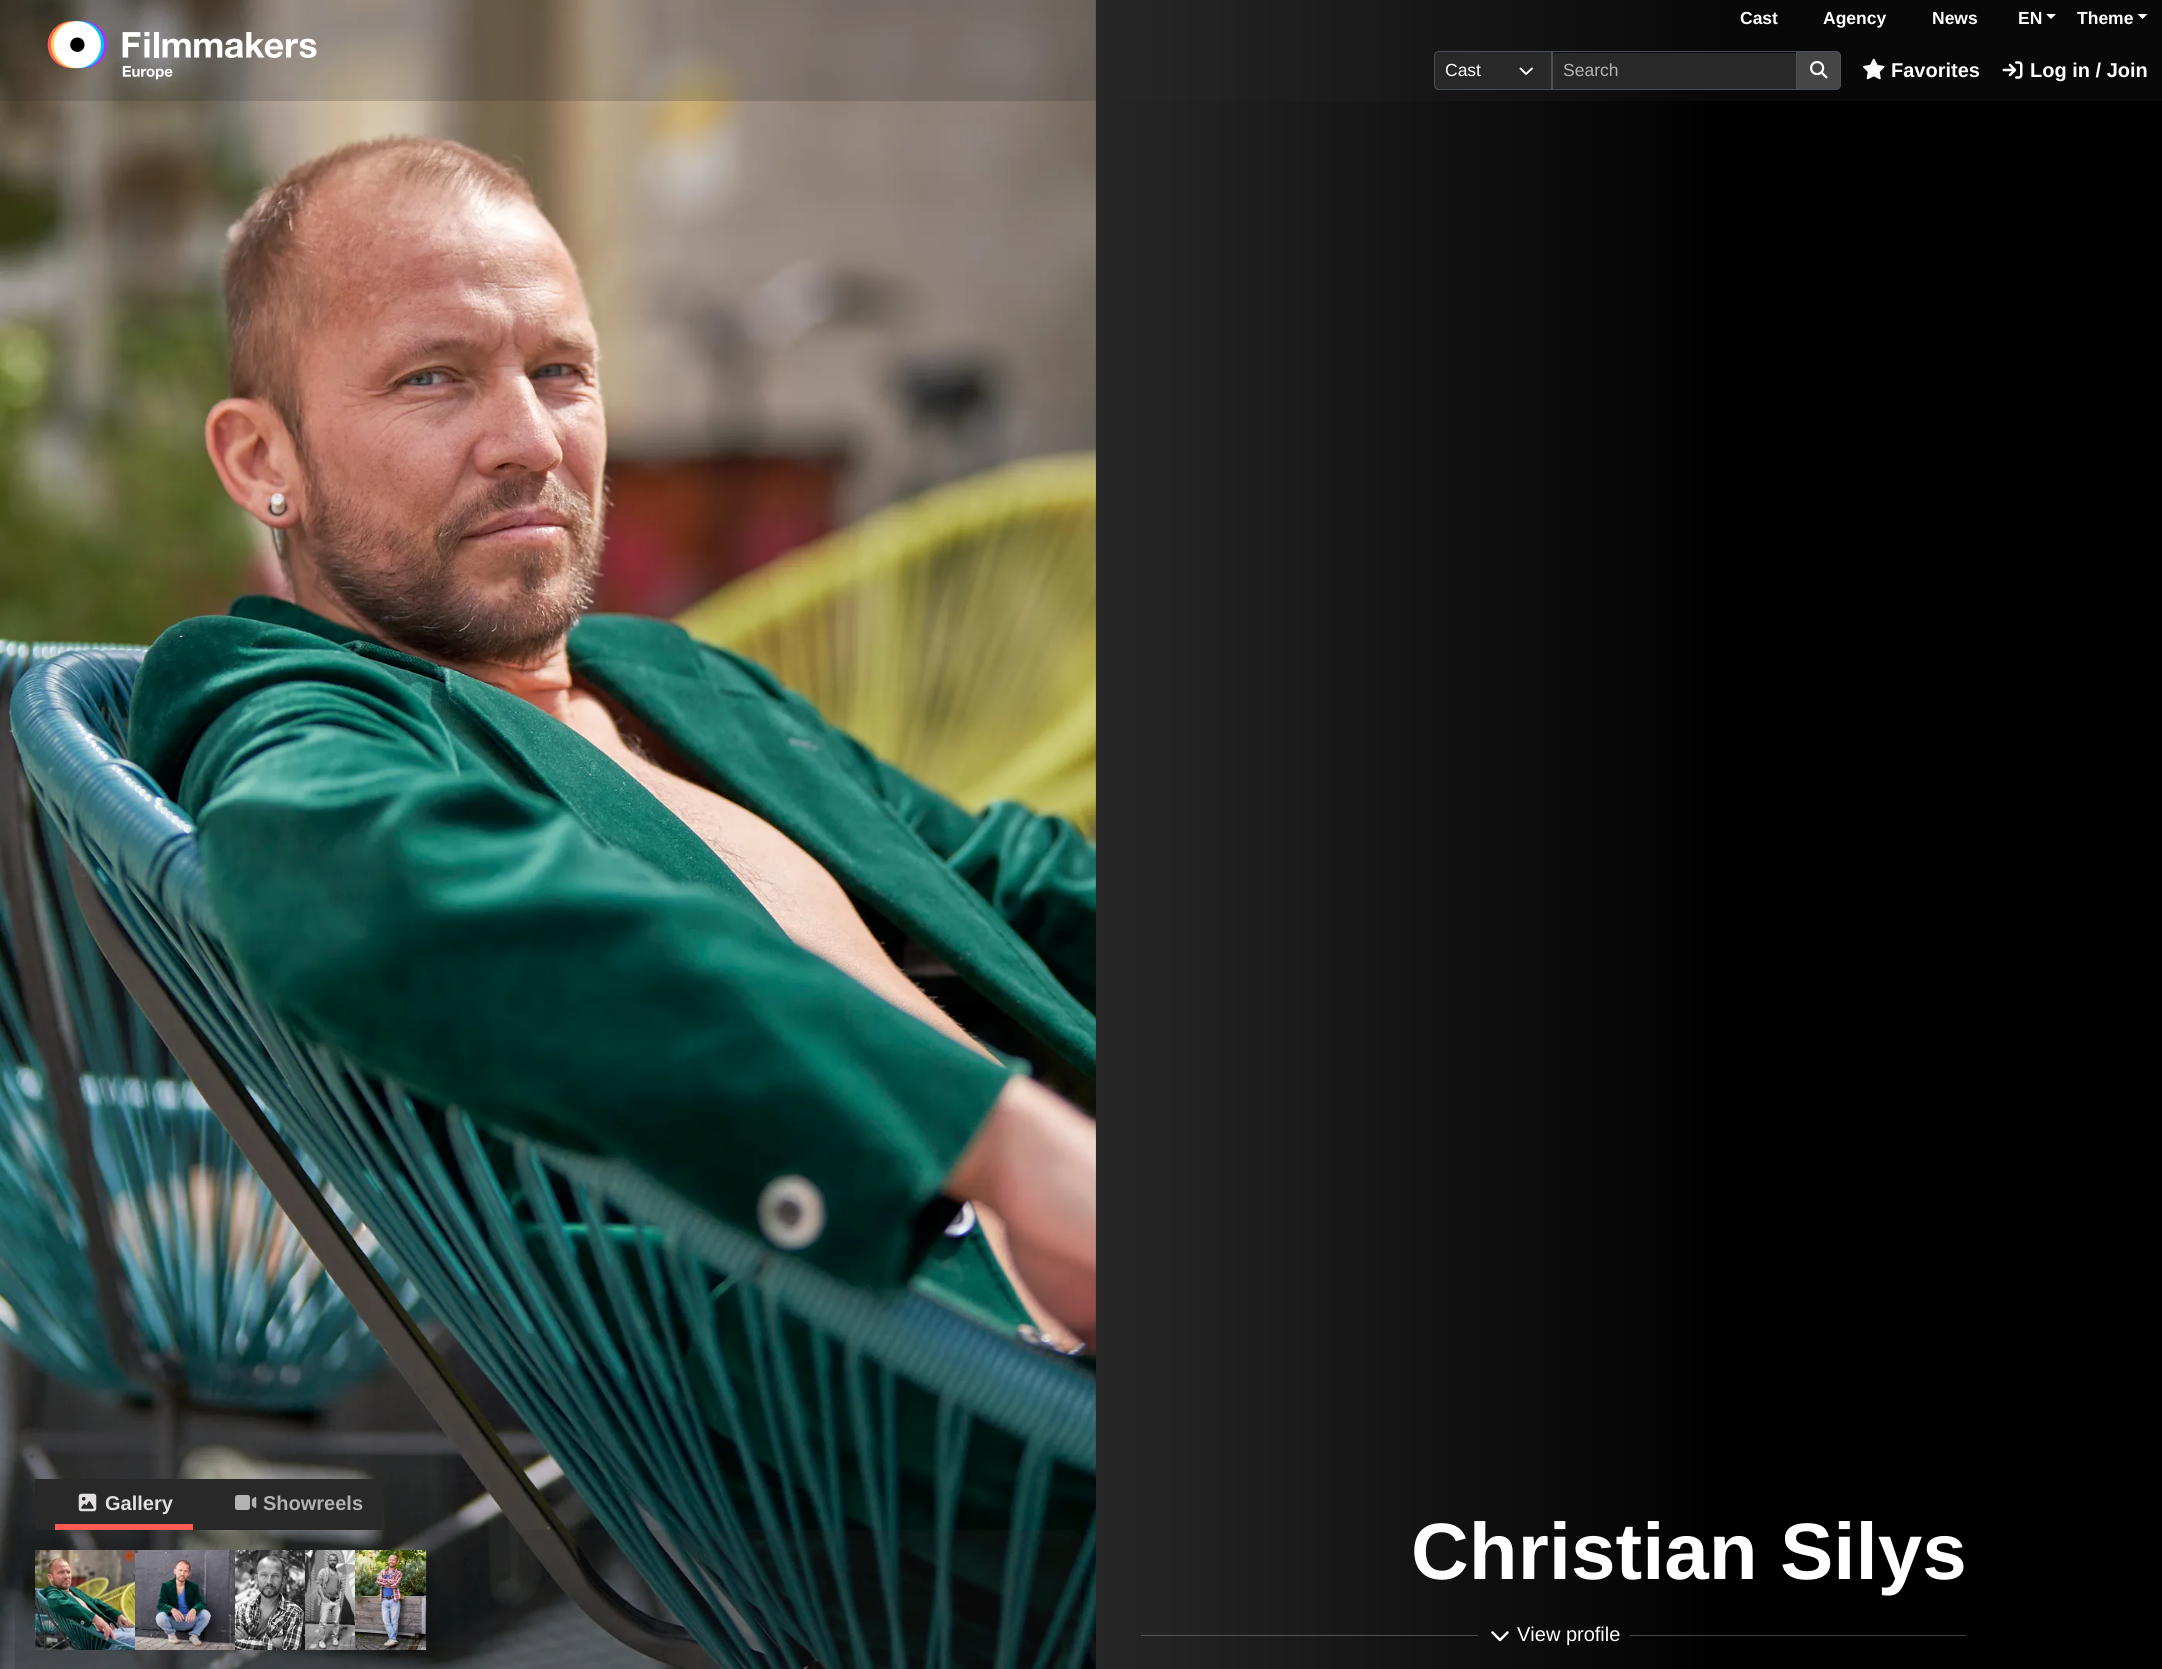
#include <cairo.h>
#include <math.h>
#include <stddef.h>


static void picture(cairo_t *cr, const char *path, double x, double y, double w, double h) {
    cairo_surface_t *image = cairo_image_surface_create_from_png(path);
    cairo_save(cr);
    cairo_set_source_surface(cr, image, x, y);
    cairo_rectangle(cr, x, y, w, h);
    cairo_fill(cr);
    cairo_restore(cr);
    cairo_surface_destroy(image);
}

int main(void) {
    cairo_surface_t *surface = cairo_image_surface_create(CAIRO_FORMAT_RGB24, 2162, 1669);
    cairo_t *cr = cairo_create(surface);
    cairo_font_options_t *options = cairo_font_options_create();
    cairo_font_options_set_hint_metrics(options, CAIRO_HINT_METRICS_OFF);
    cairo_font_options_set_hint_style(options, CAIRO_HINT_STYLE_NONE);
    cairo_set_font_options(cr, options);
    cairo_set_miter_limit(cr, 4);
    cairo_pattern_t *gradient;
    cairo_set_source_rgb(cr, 0.157, 0.157, 0.157);
    cairo_paint(cr);
    picture(cr, "img5.png", 0, 0, 1096, 1669);
    gradient = cairo_pattern_create_linear(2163, 835, 1081, 835);
    cairo_pattern_add_color_stop_rgba(gradient, 0, 0, 0, 0, 1);
    cairo_pattern_add_color_stop_rgba(gradient, 0.4, 0, 0, 0, 1);
    cairo_pattern_add_color_stop_rgba(gradient, 1, 0, 0, 0, 0);
    cairo_set_source(cr, gradient);
    cairo_pattern_destroy(gradient);
    cairo_rectangle(cr, 1095, 0, 1067, 1669);
    cairo_fill(cr);
    cairo_set_source_rgba(cr, 0.157, 0.157, 0.157, 0.2);
    cairo_rectangle(cr, 0, 0, 2162, 101);
    cairo_fill(cr);
    picture(cr, "img1.png", 47, 21, 270, 59);
    cairo_select_font_face(cr, "Liberation Sans", CAIRO_FONT_SLANT_NORMAL, CAIRO_FONT_WEIGHT_BOLD);
    cairo_set_font_size(cr, 17.5);
    cairo_set_source_rgb(cr, 1, 1, 1);
    cairo_move_to(cr, 1740, 24);
    cairo_show_text(cr, "Cast");
    cairo_move_to(cr, 1823, 24);
    cairo_show_text(cr, "Agency");
    cairo_move_to(cr, 1932, 24);
    cairo_show_text(cr, "News");
    cairo_move_to(cr, 2018, 24);
    cairo_show_text(cr, "EN");
    cairo_new_path(cr);
    cairo_move_to(cr, 2046, 14);
    cairo_line_to(cr, 2056, 14);
    cairo_line_to(cr, 2051, 19);
    cairo_close_path(cr);
    cairo_fill(cr);
    cairo_move_to(cr, 2077, 24);
    cairo_show_text(cr, "Theme");
    cairo_new_path(cr);
    cairo_move_to(cr, 2137.5, 14);
    cairo_line_to(cr, 2147.5, 14);
    cairo_line_to(cr, 2142.5, 19);
    cairo_close_path(cr);
    cairo_fill(cr);
    cairo_set_source_rgb(cr, 0.157, 0.157, 0.157);
    cairo_new_path(cr);
    cairo_move_to(cr, 1439, 51);
    cairo_line_to(cr, 1553, 51);
    cairo_line_to(cr, 1553, 90);
    cairo_line_to(cr, 1439, 90);
    cairo_curve_to(cr, 1436, 90, 1434, 88, 1434, 85);
    cairo_line_to(cr, 1434, 56);
    cairo_curve_to(cr, 1434, 53, 1436, 51, 1439, 51);
    cairo_close_path(cr);
    cairo_fill(cr);
    cairo_new_path(cr);
    cairo_move_to(cr, 1520.5, 68.5);
    cairo_line_to(cr, 1526, 74);
    cairo_line_to(cr, 1532, 68.5);
    cairo_set_source_rgb(cr, 1, 1, 1);
    cairo_set_line_width(cr, 1.9);
    cairo_set_line_cap(cr, CAIRO_LINE_CAP_ROUND);
    cairo_set_line_join(cr, CAIRO_LINE_JOIN_ROUND);
    cairo_stroke(cr);
    cairo_new_path(cr);
    cairo_move_to(cr, 1439, 51.5);
    cairo_line_to(cr, 1552.5, 51.5);
    cairo_line_to(cr, 1552.5, 89.5);
    cairo_line_to(cr, 1439, 89.5);
    cairo_curve_to(cr, 1436.5, 89.5, 1434.5, 87.5, 1434.5, 85);
    cairo_line_to(cr, 1434.5, 56);
    cairo_curve_to(cr, 1434.5, 53.5, 1436.5, 51.5, 1439, 51.5);
    cairo_close_path(cr);
    cairo_set_source_rgb(cr, 0.286, 0.314, 0.341);
    cairo_set_line_width(cr, 1);
    cairo_set_line_cap(cr, CAIRO_LINE_CAP_BUTT);
    cairo_set_line_join(cr, CAIRO_LINE_JOIN_MITER);
    cairo_stroke(cr);
    cairo_select_font_face(cr, "Liberation Sans", CAIRO_FONT_SLANT_NORMAL, CAIRO_FONT_WEIGHT_NORMAL);
    cairo_set_source_rgb(cr, 1, 1, 1);
    cairo_move_to(cr, 1445, 76);
    cairo_show_text(cr, "Cast");
    cairo_set_source_rgb(cr, 0.157, 0.157, 0.157);
    cairo_rectangle(cr, 1553, 53, 243, 36);
    cairo_fill(cr);
    cairo_rectangle(cr, 1551.5, 51.5, 246, 38);
    cairo_set_source_rgb(cr, 0.286, 0.314, 0.341);
    cairo_stroke(cr);
    cairo_set_source_rgb(cr, 0.702, 0.702, 0.702);
    cairo_move_to(cr, 1563, 76);
    cairo_show_text(cr, "Search");
    cairo_set_source_rgb(cr, 0.275, 0.275, 0.275);
    cairo_new_path(cr);
    cairo_move_to(cr, 1796.5, 51.5);
    cairo_line_to(cr, 1836, 51.5);
    cairo_curve_to(cr, 1838.5, 51.5, 1840.5, 53.5, 1840.5, 56);
    cairo_line_to(cr, 1840.5, 85);
    cairo_curve_to(cr, 1840.5, 87.5, 1838.5, 89.5, 1836, 89.5);
    cairo_line_to(cr, 1796.5, 89.5);
    cairo_close_path(cr);
    cairo_fill_preserve(cr);
    cairo_set_source_rgb(cr, 0.286, 0.314, 0.341);
    cairo_stroke(cr);
    picture(cr, "img2.png", 1810, 60, 18, 19);
    picture(cr, "img3.png", 1863, 58, 22, 22);
    cairo_select_font_face(cr, "Liberation Sans", CAIRO_FONT_SLANT_NORMAL, CAIRO_FONT_WEIGHT_BOLD);
    cairo_set_font_size(cr, 20);
    cairo_set_source_rgb(cr, 1, 1, 1);
    cairo_move_to(cr, 1891, 77);
    cairo_show_text(cr, "Favorites");
    picture(cr, "img4.png", 2002, 61, 21, 18);
    cairo_move_to(cr, 2030, 77);
    cairo_show_text(cr, "Log in / Join");
    cairo_set_source_rgba(cr, 0.275, 0.275, 0.275, 0.7);
    cairo_rectangle(cr, 30, 1455, 3, 3);
    cairo_fill(cr);
    cairo_set_source_rgb(cr, 0.157, 0.157, 0.157);
    cairo_rectangle(cr, 35, 1479, 348, 51);
    cairo_fill(cr);
    cairo_set_source_rgb(cr, 0.996, 0.361, 0.325);
    cairo_rectangle(cr, 55, 1524, 138, 6);
    cairo_fill(cr);
    picture(cr, "img6.png", 78, 1493, 19, 19);
    cairo_set_source_rgb(cr, 0.882, 0.875, 0.875);
    cairo_move_to(cr, 105, 1510);
    cairo_show_text(cr, "Gallery");
    picture(cr, "img7.png", 235, 1495, 22, 15);
    cairo_set_source_rgb(cr, 0.702, 0.702, 0.702);
    cairo_move_to(cr, 263, 1510);
    cairo_show_text(cr, "Showreels");
    cairo_set_source_rgba(cr, 0.157, 0.157, 0.157, 0.2);
    cairo_new_path(cr);
    cairo_move_to(cr, 20, 1530);
    cairo_line_to(cr, 1076, 1530);
    cairo_curve_to(cr, 1079, 1530, 1081, 1532, 1081, 1535);
    cairo_line_to(cr, 1081, 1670);
    cairo_line_to(cr, 15, 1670);
    cairo_line_to(cr, 15, 1535);
    cairo_curve_to(cr, 15, 1532, 17, 1530, 20, 1530);
    cairo_close_path(cr);
    cairo_fill(cr);
    picture(cr, "img8.png", 35, 1550, 100, 100);
    cairo_set_source_rgba(cr, 0.275, 0.275, 0.275, 0.7);
    cairo_rectangle(cr, 35, 1550, 3, 3);
    cairo_fill(cr);
    picture(cr, "img9.png", 135, 1550, 100, 100);
    cairo_rectangle(cr, 135, 1550, 3, 3);
    cairo_fill(cr);
    picture(cr, "img10.png", 235, 1550, 70, 100);
    cairo_rectangle(cr, 235, 1550, 3, 3);
    cairo_fill(cr);
    picture(cr, "img11.png", 305, 1550, 50, 100);
    cairo_rectangle(cr, 305, 1550, 3, 3);
    cairo_fill(cr);
    picture(cr, "img12.png", 355, 1550, 72, 100);
    cairo_rectangle(cr, 355, 1550, 3, 3);
    cairo_fill(cr);
    cairo_set_font_size(cr, 80);
    cairo_set_source_rgb(cr, 1, 1, 1);
    cairo_move_to(cr, 1411, 1579);
    cairo_show_text(cr, "Christian Silys");
    cairo_set_source_rgba(cr, 1, 1, 1, 0.25);
    cairo_rectangle(cr, 1141, 1635, 337, 1);
    cairo_fill(cr);
    picture(cr, "img13.png", 1491, 1631, 18, 11);
    cairo_select_font_face(cr, "Liberation Sans", CAIRO_FONT_SLANT_NORMAL, CAIRO_FONT_WEIGHT_NORMAL);
    cairo_set_font_size(cr, 20);
    cairo_set_source_rgb(cr, 1, 1, 1);
    cairo_move_to(cr, 1517, 1641);
    cairo_show_text(cr, "View profile");
    cairo_set_source_rgba(cr, 1, 1, 1, 0.25);
    cairo_rectangle(cr, 1630, 1635, 336, 1);
    cairo_fill(cr);
    cairo_surface_write_to_png(surface, "page.png");
    cairo_font_options_destroy(options);
    cairo_destroy(cr);
    cairo_surface_destroy(surface);
    return 0;
}
